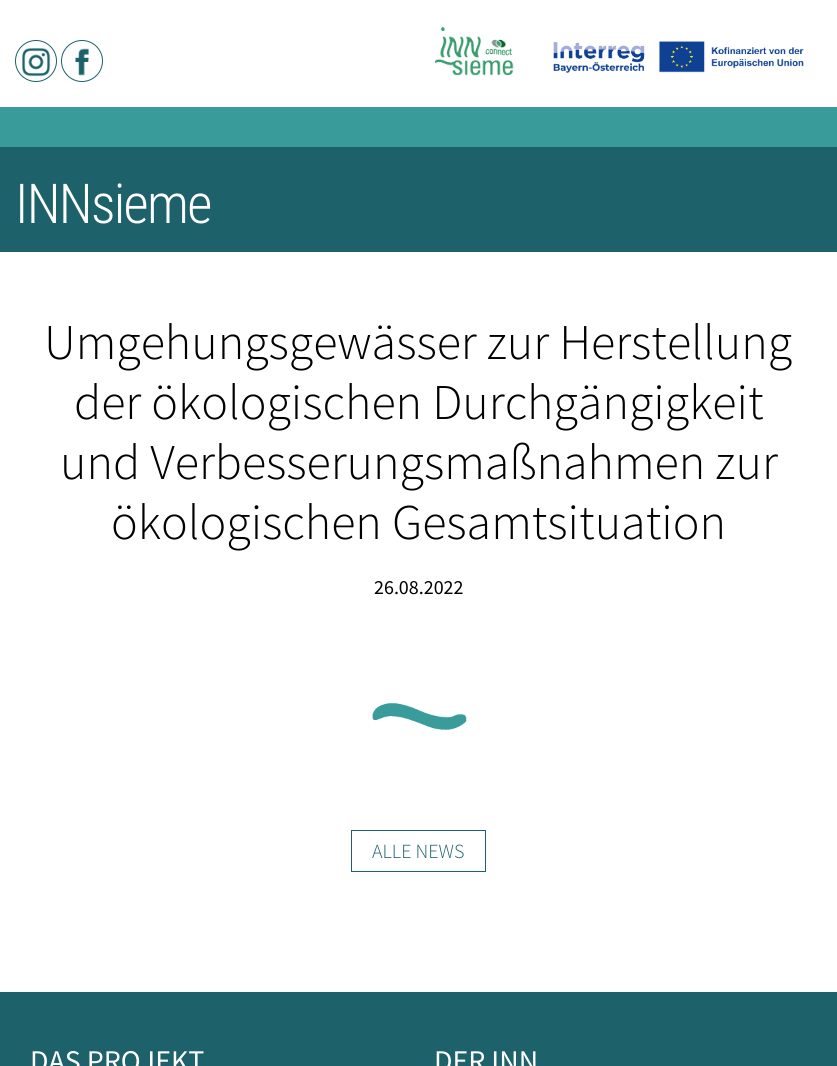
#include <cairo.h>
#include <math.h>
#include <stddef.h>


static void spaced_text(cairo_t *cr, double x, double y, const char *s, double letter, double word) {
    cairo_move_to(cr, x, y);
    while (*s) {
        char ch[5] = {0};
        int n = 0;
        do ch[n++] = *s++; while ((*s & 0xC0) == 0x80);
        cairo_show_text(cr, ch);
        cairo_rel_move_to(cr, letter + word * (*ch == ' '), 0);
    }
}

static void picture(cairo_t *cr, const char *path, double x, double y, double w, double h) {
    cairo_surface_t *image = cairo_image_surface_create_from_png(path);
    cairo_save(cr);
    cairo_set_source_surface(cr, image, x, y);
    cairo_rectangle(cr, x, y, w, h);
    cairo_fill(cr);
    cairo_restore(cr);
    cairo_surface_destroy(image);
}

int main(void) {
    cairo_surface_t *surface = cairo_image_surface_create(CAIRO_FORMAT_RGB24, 837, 1066);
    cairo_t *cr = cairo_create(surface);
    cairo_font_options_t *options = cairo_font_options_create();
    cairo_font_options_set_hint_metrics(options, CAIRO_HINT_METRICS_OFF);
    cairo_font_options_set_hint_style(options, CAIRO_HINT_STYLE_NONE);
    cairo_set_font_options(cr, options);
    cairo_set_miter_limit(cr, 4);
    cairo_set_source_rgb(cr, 1, 1, 1);
    cairo_paint(cr);
    cairo_arc(cr, 36, 61, 20.5, 0, 2 * M_PI);
    cairo_set_source_rgb(cr, 0.114, 0.38, 0.416);
    cairo_set_line_width(cr, 1);
    cairo_stroke(cr);
    picture(cr, "img1.png", 21, 47, 30, 30);
    cairo_arc(cr, 82, 61, 20.5, 0, 2 * M_PI);
    cairo_stroke(cr);
    picture(cr, "img2.png", 75, 48, 14, 28);
    picture(cr, "img3.png", 434, 26, 80, 50);
    picture(cr, "img4.png", 553, 41, 251, 32);
    cairo_rectangle(cr, 0, 147, 837, 105);
    cairo_fill(cr);
    cairo_set_source_rgb(cr, 0.224, 0.612, 0.604);
    cairo_rectangle(cr, 0, 107, 837, 40);
    cairo_fill(cr);
    cairo_select_font_face(cr, "Roboto Condensed Light", CAIRO_FONT_SLANT_NORMAL, CAIRO_FONT_WEIGHT_NORMAL);
    cairo_set_font_size(cr, 55);
    cairo_set_source_rgb(cr, 1, 1, 1);
    spaced_text(cr, 15, 223, "INNsieme", -1.75, 0);
    cairo_select_font_face(cr, "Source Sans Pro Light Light", CAIRO_FONT_SLANT_NORMAL, CAIRO_FONT_WEIGHT_NORMAL);
    cairo_set_font_size(cr, 50);
    cairo_set_source_rgb(cr, 0, 0, 0);
    cairo_move_to(cr, 44, 359);
    cairo_show_text(cr, "Umgehungsgewässer zur Herstellung");
    cairo_move_to(cr, 74, 419);
    cairo_show_text(cr, "der ökologischen Durchgängigkeit");
    cairo_move_to(cr, 60, 479);
    cairo_show_text(cr, "und Verbesserungsmaßnahmen zur");
    cairo_move_to(cr, 111, 539);
    cairo_show_text(cr, "ökologischen Gesamtsituation");
    cairo_select_font_face(cr, "Source Sans Pro", CAIRO_FONT_SLANT_NORMAL, CAIRO_FONT_WEIGHT_NORMAL);
    cairo_set_font_size(cr, 20);
    cairo_move_to(cr, 374, 594);
    cairo_show_text(cr, "26.08.2022");
    picture(cr, "img5.png", 372, 703, 95, 27);
    cairo_rectangle(cr, 351.5, 830.5, 134, 41);
    cairo_set_source_rgb(cr, 0.114, 0.38, 0.416);
    cairo_stroke(cr);
    cairo_select_font_face(cr, "Source Sans Pro Light Light", CAIRO_FONT_SLANT_NORMAL, CAIRO_FONT_WEIGHT_NORMAL);
    cairo_move_to(cr, 372, 858);
    cairo_show_text(cr, "ALLE NEWS");
    cairo_rectangle(cr, 0, 992, 837, 74);
    cairo_fill(cr);
    cairo_select_font_face(cr, "Source Sans Pro", CAIRO_FONT_SLANT_NORMAL, CAIRO_FONT_WEIGHT_NORMAL);
    cairo_set_font_size(cr, 30);
    cairo_set_source_rgb(cr, 1, 1, 1);
    cairo_move_to(cr, 30, 1071);
    cairo_show_text(cr, "DAS PROJEKT");
    cairo_move_to(cr, 434, 1071);
    cairo_show_text(cr, "DER INN");
    cairo_surface_write_to_png(surface, "page.png");
    cairo_font_options_destroy(options);
    cairo_destroy(cr);
    cairo_surface_destroy(surface);
    return 0;
}
